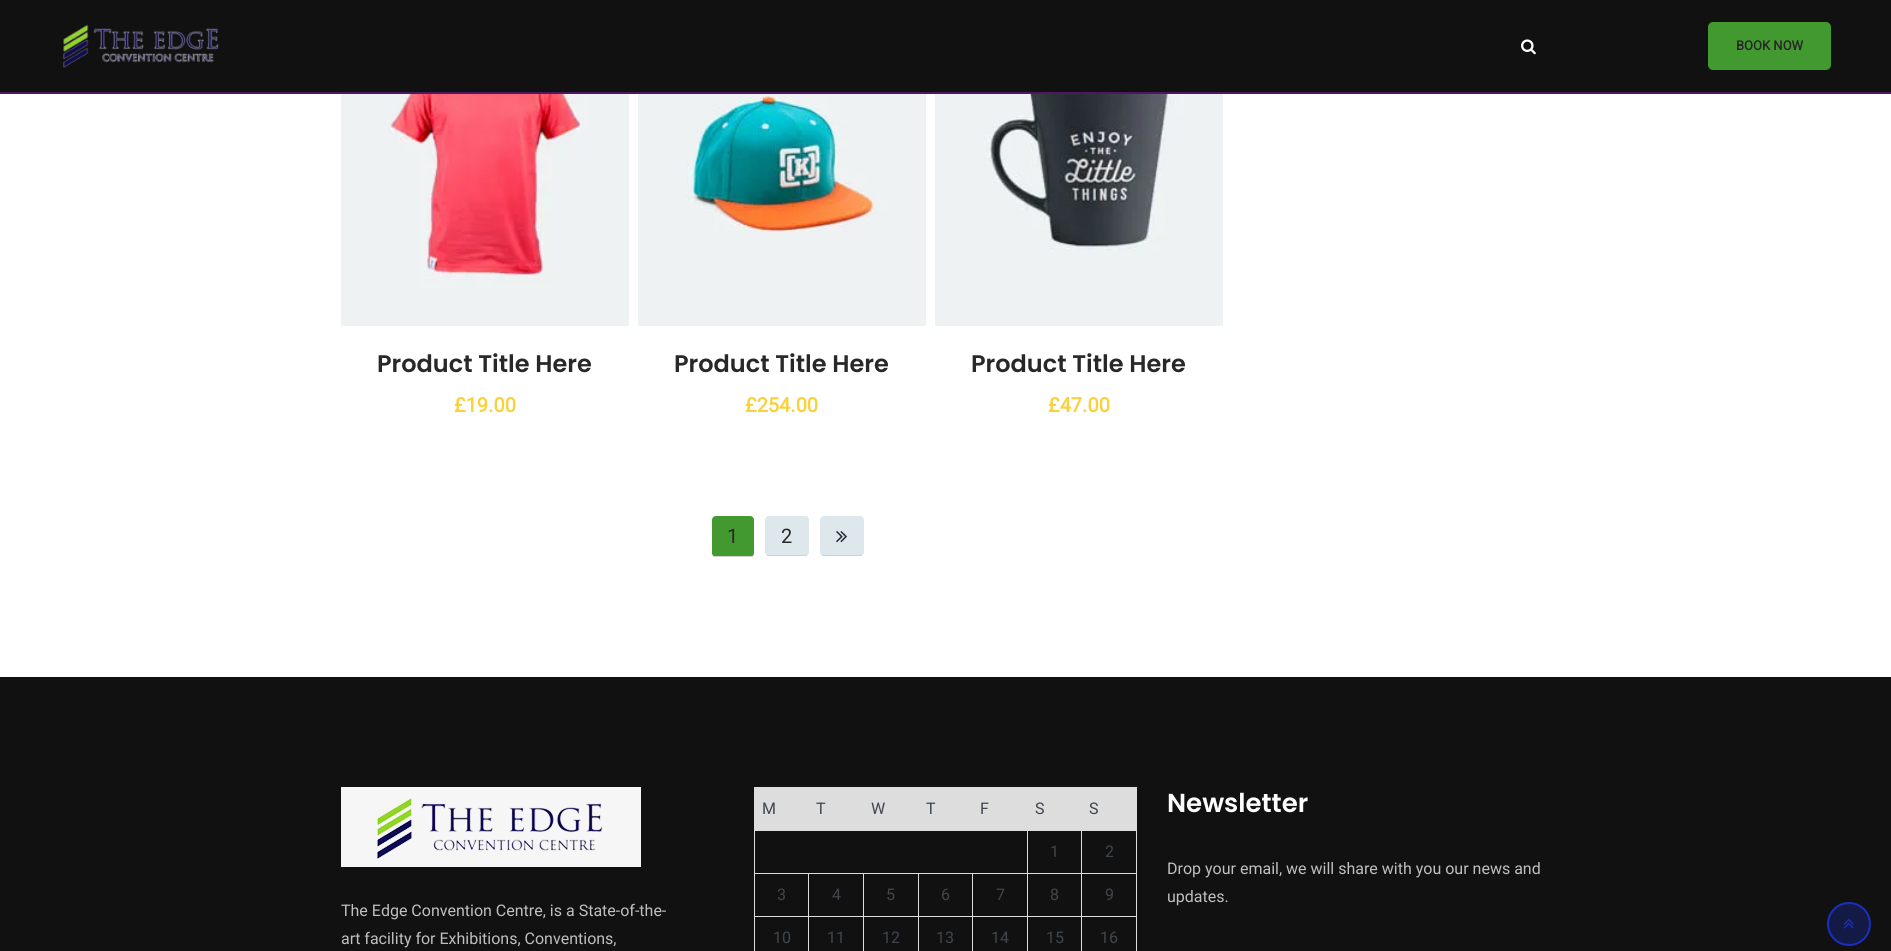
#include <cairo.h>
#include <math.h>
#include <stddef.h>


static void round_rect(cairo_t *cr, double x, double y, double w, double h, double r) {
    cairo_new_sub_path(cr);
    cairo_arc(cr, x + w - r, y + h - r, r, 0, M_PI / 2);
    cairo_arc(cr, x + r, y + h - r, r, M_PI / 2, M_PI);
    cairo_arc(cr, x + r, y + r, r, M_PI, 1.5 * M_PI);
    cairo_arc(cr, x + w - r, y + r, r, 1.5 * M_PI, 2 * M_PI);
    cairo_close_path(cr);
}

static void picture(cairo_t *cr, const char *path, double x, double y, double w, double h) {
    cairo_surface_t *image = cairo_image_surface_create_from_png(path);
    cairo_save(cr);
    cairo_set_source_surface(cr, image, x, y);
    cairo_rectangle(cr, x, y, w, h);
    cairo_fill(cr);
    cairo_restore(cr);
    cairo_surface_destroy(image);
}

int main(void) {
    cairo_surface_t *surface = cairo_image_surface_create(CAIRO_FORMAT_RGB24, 1891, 951);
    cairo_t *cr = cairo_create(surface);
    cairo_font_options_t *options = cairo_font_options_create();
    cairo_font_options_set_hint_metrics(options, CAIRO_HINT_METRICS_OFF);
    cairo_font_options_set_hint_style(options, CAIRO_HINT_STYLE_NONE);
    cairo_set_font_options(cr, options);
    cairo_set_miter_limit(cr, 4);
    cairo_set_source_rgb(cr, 1, 1, 1);
    cairo_paint(cr);
    cairo_set_source_rgb(cr, 0.067, 0.067, 0.067);
    cairo_rectangle(cr, 0, 0, 1891, 92);
    cairo_fill(cr);
    cairo_set_source_rgb(cr, 0.298, 0.094, 0.392);
    cairo_rectangle(cr, 0, 92, 1891, 2);
    cairo_fill(cr);
    picture(cr, "img1.png", 63, 24, 156, 44);
    picture(cr, "img2.png", 1521, 39, 15, 16);
    cairo_set_source_rgb(cr, 0.259, 0.6, 0.184);
    round_rect(cr, 1709, 23, 121, 46, 4);
    cairo_fill_preserve(cr);
    cairo_stroke(cr);
    cairo_select_font_face(cr, "Roboto", CAIRO_FONT_SLANT_NORMAL, CAIRO_FONT_WEIGHT_BOLD);
    cairo_set_font_size(cr, 13);
    cairo_set_source_rgb(cr, 0.157, 0.157, 0.157);
    cairo_move_to(cr, 1736, 50);
    cairo_show_text(cr, "BOOK NOW");
    picture(cr, "img3.png", 341, 94, 288, 232);
    cairo_select_font_face(cr, "Poppins SemiBold", CAIRO_FONT_SLANT_NORMAL, CAIRO_FONT_WEIGHT_NORMAL);
    cairo_set_font_size(cr, 24);
    cairo_move_to(cr, 377, 372);
    cairo_show_text(cr, "Product Title Here");
    cairo_select_font_face(cr, "Roboto", CAIRO_FONT_SLANT_NORMAL, CAIRO_FONT_WEIGHT_BOLD);
    cairo_set_font_size(cr, 20);
    cairo_set_source_rgb(cr, 0.98, 0.816, 0.231);
    cairo_move_to(cr, 454, 412);
    cairo_show_text(cr, "£19.00");
    picture(cr, "img4.png", 638, 94, 288, 232);
    cairo_select_font_face(cr, "Poppins SemiBold", CAIRO_FONT_SLANT_NORMAL, CAIRO_FONT_WEIGHT_NORMAL);
    cairo_set_font_size(cr, 24);
    cairo_set_source_rgb(cr, 0.157, 0.157, 0.157);
    cairo_move_to(cr, 674, 372);
    cairo_show_text(cr, "Product Title Here");
    cairo_select_font_face(cr, "Roboto", CAIRO_FONT_SLANT_NORMAL, CAIRO_FONT_WEIGHT_BOLD);
    cairo_set_font_size(cr, 20);
    cairo_set_source_rgb(cr, 0.98, 0.816, 0.231);
    cairo_move_to(cr, 745, 412);
    cairo_show_text(cr, "£254.00");
    picture(cr, "img5.png", 935, 94, 288, 232);
    cairo_select_font_face(cr, "Poppins SemiBold", CAIRO_FONT_SLANT_NORMAL, CAIRO_FONT_WEIGHT_NORMAL);
    cairo_set_font_size(cr, 24);
    cairo_set_source_rgb(cr, 0.157, 0.157, 0.157);
    cairo_move_to(cr, 971, 372);
    cairo_show_text(cr, "Product Title Here");
    cairo_select_font_face(cr, "Roboto", CAIRO_FONT_SLANT_NORMAL, CAIRO_FONT_WEIGHT_BOLD);
    cairo_set_font_size(cr, 20);
    cairo_set_source_rgb(cr, 0.98, 0.816, 0.231);
    cairo_move_to(cr, 1048, 412);
    cairo_show_text(cr, "£47.00");
    cairo_set_source_rgb(cr, 0.259, 0.6, 0.184);
    round_rect(cr, 712, 516, 42, 41, 4);
    cairo_fill(cr);
    cairo_set_source_rgb(cr, 0.82, 0.82, 0.82);
    cairo_rectangle(cr, 714, 556, 38, 1);
    cairo_fill(cr);
    cairo_select_font_face(cr, "Roboto", CAIRO_FONT_SLANT_NORMAL, CAIRO_FONT_WEIGHT_NORMAL);
    cairo_set_source_rgb(cr, 0.157, 0.157, 0.157);
    cairo_move_to(cr, 727, 543);
    cairo_show_text(cr, "1");
    cairo_set_source_rgb(cr, 0.867, 0.906, 0.925);
    round_rect(cr, 765, 516, 44, 40, 4);
    cairo_fill(cr);
    cairo_set_source_rgb(cr, 0.82, 0.82, 0.82);
    cairo_rectangle(cr, 767, 555, 40, 1);
    cairo_fill(cr);
    cairo_set_source_rgb(cr, 0.157, 0.157, 0.157);
    cairo_move_to(cr, 781, 543);
    cairo_show_text(cr, "2");
    cairo_set_source_rgb(cr, 0.867, 0.906, 0.925);
    round_rect(cr, 820, 516, 44, 40, 4);
    cairo_fill(cr);
    cairo_set_source_rgb(cr, 0.82, 0.82, 0.82);
    cairo_rectangle(cr, 822, 555, 40, 1);
    cairo_fill(cr);
    picture(cr, "img6.png", 836, 531, 11, 12);
    cairo_set_source_rgb(cr, 0.067, 0.067, 0.067);
    cairo_rectangle(cr, 0, 677, 1891, 274);
    cairo_fill(cr);
    picture(cr, "img7.png", 341, 787, 300, 80);
    cairo_set_font_size(cr, 16);
    cairo_set_source_rgb(cr, 0.749, 0.749, 0.749);
    cairo_move_to(cr, 341, 916);
    cairo_show_text(cr, "The Edge Convention Centre, is a State-of-the-");
    cairo_move_to(cr, 341, 944);
    cairo_show_text(cr, "art facility for Exhibitions, Conventions,");
    cairo_set_source_rgb(cr, 0.867, 0.867, 0.867);
    cairo_rectangle(cr, 754, 787, 383, 43);
    cairo_fill(cr);
    cairo_set_source_rgb(cr, 0.251, 0.275, 0.302);
    cairo_move_to(cr, 762, 814);
    cairo_show_text(cr, "M");
    cairo_move_to(cr, 816, 814);
    cairo_show_text(cr, "T");
    cairo_move_to(cr, 871, 814);
    cairo_show_text(cr, "W");
    cairo_move_to(cr, 926, 814);
    cairo_show_text(cr, "T");
    cairo_move_to(cr, 980, 814);
    cairo_show_text(cr, "F");
    cairo_move_to(cr, 1035, 814);
    cairo_show_text(cr, "S");
    cairo_move_to(cr, 1089, 814);
    cairo_show_text(cr, "S");
    cairo_set_source_rgb(cr, 0.867, 0.867, 0.867);
    cairo_rectangle(cr, 1081, 830, 56, 1);
    cairo_fill(cr);
    cairo_rectangle(cr, 1081, 873, 56, 1);
    cairo_fill(cr);
    cairo_rectangle(cr, 1081, 916, 56, 1);
    cairo_fill(cr);
    cairo_rectangle(cr, 1081, 916, 1, 35);
    cairo_fill(cr);
    cairo_rectangle(cr, 1027, 916, 55, 1);
    cairo_fill(cr);
    cairo_rectangle(cr, 1081, 873, 1, 44);
    cairo_fill(cr);
    cairo_rectangle(cr, 1027, 873, 55, 1);
    cairo_fill(cr);
    cairo_rectangle(cr, 1081, 830, 1, 44);
    cairo_fill(cr);
    cairo_rectangle(cr, 1027, 830, 55, 1);
    cairo_fill(cr);
    cairo_rectangle(cr, 1027, 916, 1, 35);
    cairo_fill(cr);
    cairo_rectangle(cr, 972, 916, 56, 1);
    cairo_fill(cr);
    cairo_rectangle(cr, 1027, 873, 1, 44);
    cairo_fill(cr);
    cairo_rectangle(cr, 972, 873, 56, 1);
    cairo_fill(cr);
    cairo_rectangle(cr, 1027, 830, 1, 44);
    cairo_fill(cr);
    cairo_rectangle(cr, 754, 830, 274, 1);
    cairo_fill(cr);
    cairo_rectangle(cr, 972, 916, 1, 35);
    cairo_fill(cr);
    cairo_rectangle(cr, 918, 916, 55, 1);
    cairo_fill(cr);
    cairo_rectangle(cr, 972, 873, 1, 44);
    cairo_fill(cr);
    cairo_rectangle(cr, 918, 873, 55, 1);
    cairo_fill(cr);
    cairo_rectangle(cr, 918, 916, 1, 35);
    cairo_fill(cr);
    cairo_rectangle(cr, 863, 916, 56, 1);
    cairo_fill(cr);
    cairo_rectangle(cr, 918, 873, 1, 44);
    cairo_fill(cr);
    cairo_rectangle(cr, 863, 873, 56, 1);
    cairo_fill(cr);
    cairo_rectangle(cr, 863, 916, 1, 35);
    cairo_fill(cr);
    cairo_rectangle(cr, 808, 916, 56, 1);
    cairo_fill(cr);
    cairo_rectangle(cr, 863, 873, 1, 44);
    cairo_fill(cr);
    cairo_rectangle(cr, 808, 873, 56, 1);
    cairo_fill(cr);
    cairo_rectangle(cr, 808, 916, 1, 35);
    cairo_fill(cr);
    cairo_rectangle(cr, 754, 916, 55, 1);
    cairo_fill(cr);
    cairo_rectangle(cr, 808, 873, 1, 44);
    cairo_fill(cr);
    cairo_rectangle(cr, 754, 873, 55, 1);
    cairo_fill(cr);
    cairo_rectangle(cr, 754, 916, 1, 35);
    cairo_fill(cr);
    cairo_rectangle(cr, 754, 873, 1, 44);
    cairo_fill(cr);
    cairo_rectangle(cr, 754, 830, 1, 44);
    cairo_fill(cr);
    cairo_set_source_rgb(cr, 0.251, 0.275, 0.302);
    cairo_move_to(cr, 1050, 857);
    cairo_show_text(cr, "1");
    cairo_set_source_rgb(cr, 0.867, 0.867, 0.867);
    cairo_rectangle(cr, 1136, 916, 1, 35);
    cairo_fill(cr);
    cairo_rectangle(cr, 1136, 873, 1, 44);
    cairo_fill(cr);
    cairo_rectangle(cr, 1136, 830, 1, 44);
    cairo_fill(cr);
    cairo_set_source_rgb(cr, 0.251, 0.275, 0.302);
    cairo_move_to(cr, 1105, 857);
    cairo_show_text(cr, "2");
    cairo_move_to(cr, 777, 900);
    cairo_show_text(cr, "3");
    cairo_move_to(cr, 832, 900);
    cairo_show_text(cr, "4");
    cairo_move_to(cr, 886, 900);
    cairo_show_text(cr, "5");
    cairo_move_to(cr, 941, 900);
    cairo_show_text(cr, "6");
    cairo_move_to(cr, 996, 900);
    cairo_show_text(cr, "7");
    cairo_move_to(cr, 1050, 900);
    cairo_show_text(cr, "8");
    cairo_move_to(cr, 1105, 900);
    cairo_show_text(cr, "9");
    cairo_move_to(cr, 773, 943);
    cairo_show_text(cr, "10");
    cairo_move_to(cr, 827, 943);
    cairo_show_text(cr, "11");
    cairo_move_to(cr, 882, 943);
    cairo_show_text(cr, "12");
    cairo_move_to(cr, 936, 943);
    cairo_show_text(cr, "13");
    cairo_move_to(cr, 991, 943);
    cairo_show_text(cr, "14");
    cairo_move_to(cr, 1046, 943);
    cairo_show_text(cr, "15");
    cairo_move_to(cr, 1100, 943);
    cairo_show_text(cr, "16");
    cairo_select_font_face(cr, "Poppins SemiBold", CAIRO_FONT_SLANT_NORMAL, CAIRO_FONT_WEIGHT_NORMAL);
    cairo_set_font_size(cr, 26);
    cairo_set_source_rgb(cr, 1, 1, 1);
    cairo_move_to(cr, 1167, 812);
    cairo_show_text(cr, "Newsletter");
    cairo_select_font_face(cr, "Roboto", CAIRO_FONT_SLANT_NORMAL, CAIRO_FONT_WEIGHT_NORMAL);
    cairo_set_font_size(cr, 16);
    cairo_set_source_rgb(cr, 0.749, 0.749, 0.749);
    cairo_move_to(cr, 1167, 874);
    cairo_show_text(cr, "Drop your email, we will share with you our news and");
    cairo_move_to(cr, 1167, 902);
    cairo_show_text(cr, "updates.");
    cairo_set_source_rgb(cr, 0.075, 0.102, 0.271);
    cairo_new_path(cr);
    cairo_arc(cr, 1849, 924, 21, 0, 2 * M_PI);
    cairo_fill_preserve(cr);
    cairo_set_source_rgb(cr, 0.094, 0.184, 0.749);
    cairo_stroke(cr);
    picture(cr, "img8.png", 1843, 919, 11, 10);
    cairo_surface_write_to_png(surface, "page.png");
    cairo_font_options_destroy(options);
    cairo_destroy(cr);
    cairo_surface_destroy(surface);
    return 0;
}
